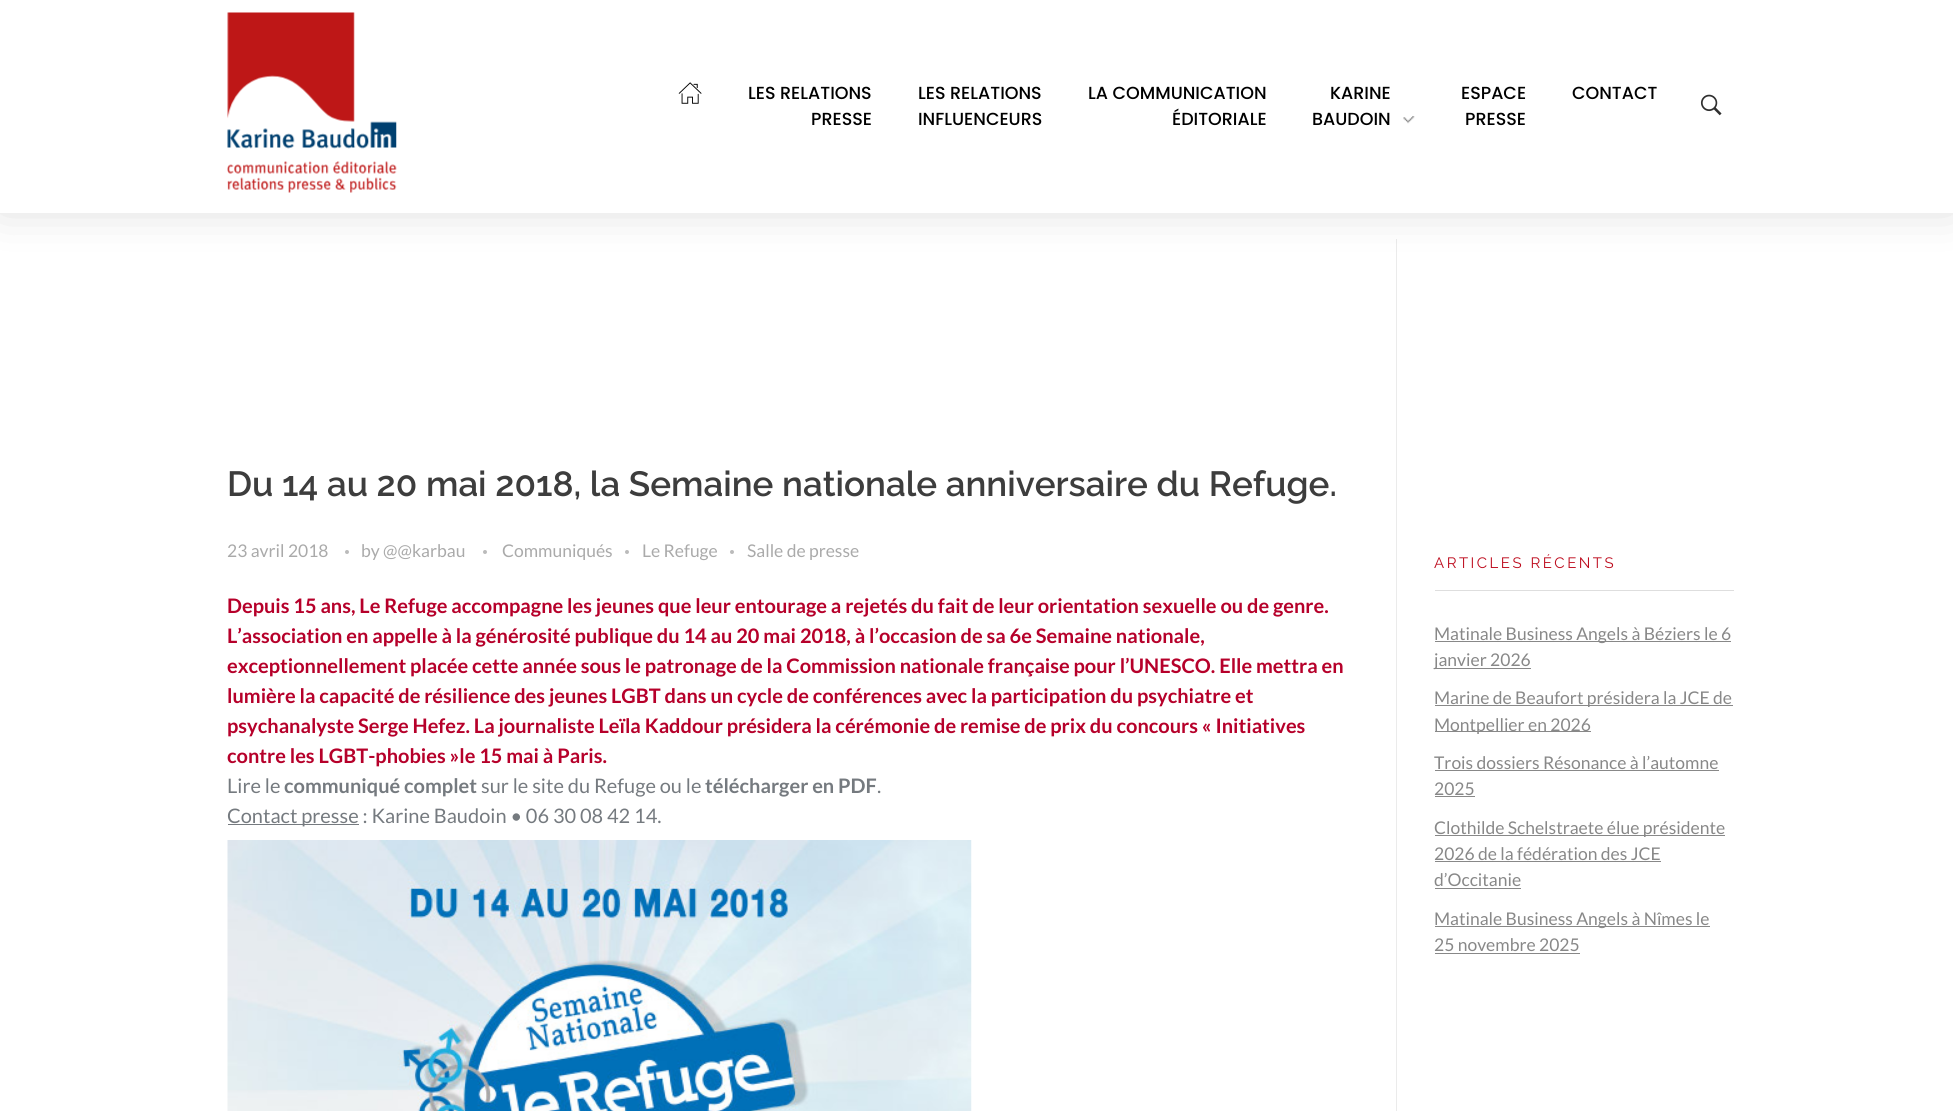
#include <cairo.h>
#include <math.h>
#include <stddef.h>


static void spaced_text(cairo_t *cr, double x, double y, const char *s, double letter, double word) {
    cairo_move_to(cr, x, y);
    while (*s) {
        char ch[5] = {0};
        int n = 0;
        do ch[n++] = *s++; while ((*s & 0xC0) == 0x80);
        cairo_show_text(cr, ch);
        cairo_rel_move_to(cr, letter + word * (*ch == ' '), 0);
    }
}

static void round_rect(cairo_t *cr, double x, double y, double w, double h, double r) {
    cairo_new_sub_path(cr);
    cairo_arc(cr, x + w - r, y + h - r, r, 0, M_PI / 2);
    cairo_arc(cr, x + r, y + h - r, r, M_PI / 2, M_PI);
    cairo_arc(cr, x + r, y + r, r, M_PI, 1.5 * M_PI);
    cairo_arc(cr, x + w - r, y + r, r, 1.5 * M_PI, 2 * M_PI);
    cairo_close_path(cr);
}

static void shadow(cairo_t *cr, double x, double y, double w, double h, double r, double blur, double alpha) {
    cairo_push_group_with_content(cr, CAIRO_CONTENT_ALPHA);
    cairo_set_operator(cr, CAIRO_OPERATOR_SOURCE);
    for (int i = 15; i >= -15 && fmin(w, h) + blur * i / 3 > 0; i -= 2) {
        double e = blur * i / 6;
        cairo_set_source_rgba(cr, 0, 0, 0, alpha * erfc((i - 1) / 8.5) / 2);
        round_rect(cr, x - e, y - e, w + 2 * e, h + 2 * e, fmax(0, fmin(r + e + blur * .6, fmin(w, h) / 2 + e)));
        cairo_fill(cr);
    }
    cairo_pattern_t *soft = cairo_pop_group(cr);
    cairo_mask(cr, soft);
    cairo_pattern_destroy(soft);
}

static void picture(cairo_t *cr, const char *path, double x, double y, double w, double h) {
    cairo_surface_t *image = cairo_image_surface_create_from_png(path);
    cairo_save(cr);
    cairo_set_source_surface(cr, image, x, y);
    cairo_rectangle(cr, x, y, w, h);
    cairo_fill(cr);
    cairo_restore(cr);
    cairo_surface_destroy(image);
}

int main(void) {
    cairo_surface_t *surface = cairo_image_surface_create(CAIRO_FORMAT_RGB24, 1953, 1111);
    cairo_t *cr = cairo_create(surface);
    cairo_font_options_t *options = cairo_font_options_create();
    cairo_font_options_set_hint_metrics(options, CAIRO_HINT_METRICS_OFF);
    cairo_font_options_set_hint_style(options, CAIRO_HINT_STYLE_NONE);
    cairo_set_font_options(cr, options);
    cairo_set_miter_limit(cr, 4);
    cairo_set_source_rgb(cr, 1, 1, 1);
    cairo_paint(cr);
    cairo_set_source_rgb(cr, 0.918, 0.918, 0.918);
    cairo_rectangle(cr, 1396, 239, 1, 872);
    cairo_fill(cr);
    cairo_set_source_rgb(cr, 0, 0, 0);
    shadow(cr, 0, -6, 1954, 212, 0, 25, 0.16);
    cairo_set_source_rgb(cr, 1, 1, 1);
    cairo_rectangle(cr, 0, 0, 1953, 213);
    cairo_fill(cr);
    picture(cr, "img1.png", 227, 12, 170, 181);
    picture(cr, "img2.png", 678, 82, 24, 22);
    cairo_select_font_face(cr, "Poppins Medium", CAIRO_FONT_SLANT_NORMAL, CAIRO_FONT_WEIGHT_NORMAL);
    cairo_set_font_size(cr, 17.5);
    cairo_set_source_rgb(cr, 0, 0, 0);
    cairo_move_to(cr, 748, 99);
    cairo_show_text(cr, "LES RELATIONS");
    cairo_move_to(cr, 811, 125);
    cairo_show_text(cr, "PRESSE");
    cairo_move_to(cr, 918, 99);
    cairo_show_text(cr, "LES RELATIONS");
    cairo_move_to(cr, 918, 125);
    cairo_show_text(cr, "INFLUENCEURS");
    cairo_move_to(cr, 1088, 99);
    cairo_show_text(cr, "LA COMMUNICATION");
    cairo_move_to(cr, 1172, 125);
    cairo_show_text(cr, "ÉDITORIALE");
    cairo_move_to(cr, 1330, 99);
    cairo_show_text(cr, "KARINE");
    cairo_move_to(cr, 1312, 125);
    cairo_show_text(cr, "BAUDOIN");
    picture(cr, "img3.png", 1403, 116, 12, 8);
    cairo_move_to(cr, 1461, 99);
    cairo_show_text(cr, "ESPACE");
    cairo_move_to(cr, 1465, 125);
    cairo_show_text(cr, "PRESSE");
    cairo_move_to(cr, 1572, 99);
    cairo_show_text(cr, "CONTACT");
    picture(cr, "img4.png", 1700, 94, 22, 22);
    cairo_select_font_face(cr, "Raleway SemiBold", CAIRO_FONT_SLANT_NORMAL, CAIRO_FONT_WEIGHT_NORMAL);
    cairo_set_font_size(cr, 35);
    cairo_set_source_rgb(cr, 0.239, 0.239, 0.239);
    cairo_move_to(cr, 227, 496);
    cairo_show_text(cr, "Du 14 au 20 mai 2018, la Semaine nationale anniversaire du Refuge.");
    cairo_select_font_face(cr, "Lato", CAIRO_FONT_SLANT_NORMAL, CAIRO_FONT_WEIGHT_NORMAL);
    cairo_set_font_size(cr, 17.5);
    cairo_set_source_rgb(cr, 0.667, 0.667, 0.667);
    cairo_move_to(cr, 227, 557);
    cairo_show_text(cr, "23 avril 2018");
    cairo_set_source_rgb(cr, 0.733, 0.733, 0.733);
    cairo_new_path(cr);
    cairo_arc(cr, 347, 552, 2, 0, 2 * M_PI);
    cairo_fill(cr);
    cairo_set_source_rgb(cr, 0.667, 0.667, 0.667);
    cairo_move_to(cr, 361, 557);
    cairo_show_text(cr, "by @@karbau");
    cairo_set_source_rgb(cr, 0.733, 0.733, 0.733);
    cairo_new_path(cr);
    cairo_arc(cr, 485, 552, 2, 0, 2 * M_PI);
    cairo_fill(cr);
    cairo_set_source_rgb(cr, 0.667, 0.667, 0.667);
    cairo_move_to(cr, 502, 557);
    cairo_show_text(cr, "Communiqués");
    cairo_set_source_rgb(cr, 0.733, 0.733, 0.733);
    cairo_new_path(cr);
    cairo_arc(cr, 627, 552, 2, 0, 2 * M_PI);
    cairo_fill(cr);
    cairo_set_source_rgb(cr, 0.667, 0.667, 0.667);
    cairo_move_to(cr, 642, 557);
    cairo_show_text(cr, "Le Refuge");
    cairo_set_source_rgb(cr, 0.733, 0.733, 0.733);
    cairo_new_path(cr);
    cairo_arc(cr, 732, 552, 2, 0, 2 * M_PI);
    cairo_fill(cr);
    cairo_set_source_rgb(cr, 0.667, 0.667, 0.667);
    cairo_move_to(cr, 747, 557);
    cairo_show_text(cr, "Salle de presse");
    cairo_select_font_face(cr, "Lato", CAIRO_FONT_SLANT_NORMAL, CAIRO_FONT_WEIGHT_BOLD);
    cairo_set_font_size(cr, 20);
    cairo_set_source_rgb(cr, 0.714, 0, 0.165);
    cairo_move_to(cr, 227, 613);
    cairo_show_text(cr, "Depuis 15 ans, Le Refuge accompagne les jeunes que leur entourage a rejetés du fait de leur orientation sexuelle ou de genre.");
    cairo_move_to(cr, 227, 643);
    cairo_show_text(cr, "L’association en appelle à la générosité publique du 14 au 20 mai 2018, à l’occasion de sa 6e Semaine nationale,");
    cairo_move_to(cr, 227, 673);
    cairo_show_text(cr, "exceptionnellement placée cette année sous le patronage de la Commission nationale française pour l’UNESCO. Elle mettra en");
    cairo_move_to(cr, 227, 703);
    cairo_show_text(cr, "lumière la capacité de résilience des jeunes LGBT dans un cycle de conférences avec la participation du psychiatre et");
    cairo_move_to(cr, 227, 733);
    cairo_show_text(cr, "psychanalyste Serge Hefez. La journaliste Leïla Kaddour présidera la cérémonie de remise de prix du concours « Initiatives");
    cairo_move_to(cr, 227, 763);
    cairo_show_text(cr, "contre les LGBT-phobies »le 15 mai à Paris.");
    cairo_select_font_face(cr, "Lato", CAIRO_FONT_SLANT_NORMAL, CAIRO_FONT_WEIGHT_NORMAL);
    cairo_set_source_rgb(cr, 0.459, 0.478, 0.498);
    cairo_move_to(cr, 227, 793);
    cairo_show_text(cr, "Lire le");
    cairo_select_font_face(cr, "Lato", CAIRO_FONT_SLANT_NORMAL, CAIRO_FONT_WEIGHT_BOLD);
    cairo_move_to(cr, 284, 793);
    cairo_show_text(cr, "communiqué complet");
    cairo_select_font_face(cr, "Lato", CAIRO_FONT_SLANT_NORMAL, CAIRO_FONT_WEIGHT_NORMAL);
    cairo_move_to(cr, 481, 793);
    cairo_show_text(cr, "sur le site du Refuge ou le");
    cairo_select_font_face(cr, "Lato", CAIRO_FONT_SLANT_NORMAL, CAIRO_FONT_WEIGHT_BOLD);
    cairo_move_to(cr, 705, 793);
    cairo_show_text(cr, "télécharger en PDF");
    cairo_select_font_face(cr, "Lato", CAIRO_FONT_SLANT_NORMAL, CAIRO_FONT_WEIGHT_NORMAL);
    cairo_move_to(cr, 877, 793);
    cairo_show_text(cr, ".");
    cairo_rectangle(cr, 228, 824, 131, 1);
    cairo_fill(cr);
    cairo_move_to(cr, 227, 823);
    cairo_show_text(cr, "Contact presse : Karine Baudoin • 06 30 08 42 14.");
    picture(cr, "img5.png", 227, 840, 745, 271);
    cairo_set_source_rgb(cr, 0.871, 0.871, 0.871);
    cairo_rectangle(cr, 1435, 590, 299, 1);
    cairo_fill(cr);
    cairo_select_font_face(cr, "Raleway", CAIRO_FONT_SLANT_NORMAL, CAIRO_FONT_WEIGHT_NORMAL);
    cairo_set_font_size(cr, 15);
    cairo_set_source_rgb(cr, 0.741, 0.043, 0.114);
    spaced_text(cr, 1434, 568, "ARTICLES RÉCENTS", 2.5, 0);
    cairo_set_source_rgb(cr, 0.533, 0.533, 0.533);
    cairo_rectangle(cr, 1435, 641, 296, 1);
    cairo_fill(cr);
    cairo_select_font_face(cr, "Lato", CAIRO_FONT_SLANT_NORMAL, CAIRO_FONT_WEIGHT_NORMAL);
    cairo_set_font_size(cr, 17.5);
    cairo_move_to(cr, 1434, 640);
    cairo_show_text(cr, "Matinale Business Angels à Béziers le 6");
    cairo_rectangle(cr, 1435, 668, 96, 1);
    cairo_fill(cr);
    cairo_move_to(cr, 1434, 666);
    cairo_show_text(cr, "janvier 2026");
    cairo_rectangle(cr, 1435, 705, 298, 1);
    cairo_fill(cr);
    cairo_move_to(cr, 1434, 704);
    cairo_show_text(cr, "Marine de Beaufort présidera la JCE de");
    cairo_rectangle(cr, 1435, 731, 156, 1);
    cairo_fill(cr);
    cairo_move_to(cr, 1434, 731);
    cairo_show_text(cr, "Montpellier en 2026");
    cairo_move_to(cr, 1434, 769);
    cairo_show_text(cr, "Trois dossiers Résonance à l’automne");
    cairo_rectangle(cr, 1435, 770, 284, 1);
    cairo_fill(cr);
    cairo_move_to(cr, 1434, 795);
    cairo_show_text(cr, "2025");
    cairo_rectangle(cr, 1435, 796, 40, 1);
    cairo_fill(cr);
    cairo_rectangle(cr, 1435, 835, 290, 1);
    cairo_fill(cr);
    cairo_move_to(cr, 1434, 834);
    cairo_show_text(cr, "Clothilde Schelstraete élue présidente");
    cairo_move_to(cr, 1434, 860);
    cairo_show_text(cr, "2026 de la fédération des JCE");
    cairo_rectangle(cr, 1435, 861, 226, 1);
    cairo_fill(cr);
    cairo_move_to(cr, 1434, 886);
    cairo_show_text(cr, "d’Occitanie");
    cairo_rectangle(cr, 1435, 888, 86, 1);
    cairo_fill(cr);
    cairo_rectangle(cr, 1435, 926, 275, 1);
    cairo_fill(cr);
    cairo_move_to(cr, 1434, 925);
    cairo_show_text(cr, "Matinale Business Angels à Nîmes le");
    cairo_move_to(cr, 1434, 951);
    cairo_show_text(cr, "25 novembre 2025");
    cairo_rectangle(cr, 1435, 953, 145, 1);
    cairo_fill(cr);
    cairo_surface_write_to_png(surface, "page.png");
    cairo_font_options_destroy(options);
    cairo_destroy(cr);
    cairo_surface_destroy(surface);
    return 0;
}
